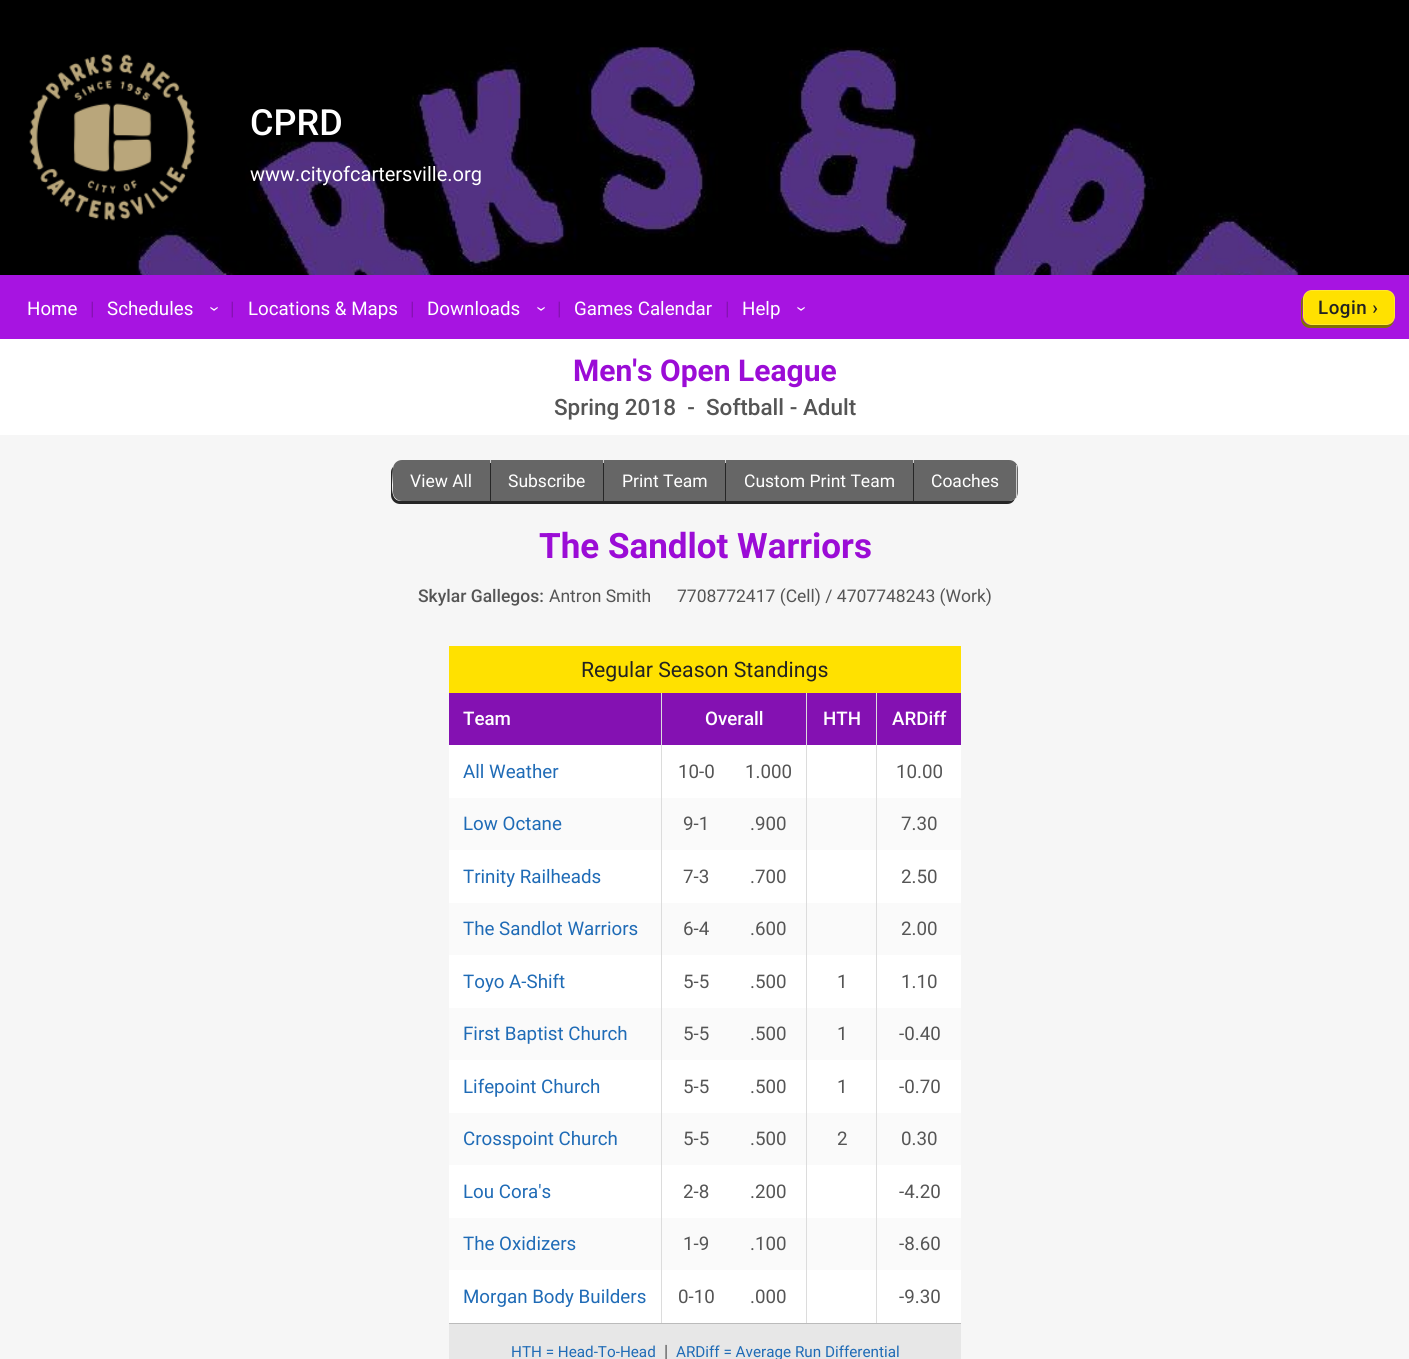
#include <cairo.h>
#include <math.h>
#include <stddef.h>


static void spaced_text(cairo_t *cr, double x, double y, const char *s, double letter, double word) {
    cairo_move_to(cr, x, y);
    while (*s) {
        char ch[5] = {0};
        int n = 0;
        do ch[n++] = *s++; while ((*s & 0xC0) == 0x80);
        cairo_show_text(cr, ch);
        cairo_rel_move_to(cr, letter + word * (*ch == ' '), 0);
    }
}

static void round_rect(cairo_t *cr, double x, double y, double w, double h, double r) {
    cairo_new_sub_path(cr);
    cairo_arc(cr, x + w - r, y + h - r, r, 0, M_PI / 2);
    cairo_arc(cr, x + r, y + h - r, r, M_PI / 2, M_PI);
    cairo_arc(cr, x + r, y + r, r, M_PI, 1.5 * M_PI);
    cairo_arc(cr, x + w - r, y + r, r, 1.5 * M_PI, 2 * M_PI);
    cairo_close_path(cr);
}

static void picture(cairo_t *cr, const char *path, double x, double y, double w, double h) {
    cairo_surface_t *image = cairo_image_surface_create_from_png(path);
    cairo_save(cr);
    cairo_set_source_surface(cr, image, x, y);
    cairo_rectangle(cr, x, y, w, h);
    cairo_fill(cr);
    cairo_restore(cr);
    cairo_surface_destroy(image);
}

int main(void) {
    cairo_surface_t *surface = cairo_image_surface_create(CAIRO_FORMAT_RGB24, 1409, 1359);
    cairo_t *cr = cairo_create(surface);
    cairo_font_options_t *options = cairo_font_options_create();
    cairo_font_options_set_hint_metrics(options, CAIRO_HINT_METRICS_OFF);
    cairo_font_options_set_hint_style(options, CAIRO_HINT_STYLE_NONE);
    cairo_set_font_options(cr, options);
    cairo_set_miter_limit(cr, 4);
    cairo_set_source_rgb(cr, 1, 1, 1);
    cairo_paint(cr);
    picture(cr, "img1.png", 0, 0, 1409, 275);
    picture(cr, "img2.png", 29, 54, 167, 167);
    cairo_select_font_face(cr, "Roboto Medium", CAIRO_FONT_SLANT_NORMAL, CAIRO_FONT_WEIGHT_NORMAL);
    cairo_set_font_size(cr, 36);
    cairo_set_source_rgb(cr, 1, 1, 1);
    cairo_move_to(cr, 250, 135);
    cairo_show_text(cr, "CPRD");
    cairo_select_font_face(cr, "Roboto", CAIRO_FONT_SLANT_NORMAL, CAIRO_FONT_WEIGHT_NORMAL);
    cairo_set_font_size(cr, 20);
    cairo_move_to(cr, 250, 181);
    cairo_show_text(cr, "www.cityofcartersville.org");
    cairo_set_source_rgb(cr, 0.655, 0.082, 0.882);
    cairo_rectangle(cr, 0, 275, 1409, 64);
    cairo_fill(cr);
    cairo_set_font_size(cr, 18.75);
    cairo_set_source_rgb(cr, 1, 1, 1);
    cairo_move_to(cr, 27, 315);
    cairo_show_text(cr, "Home");
    cairo_set_source_rgb(cr, 0.518, 0.067, 0.698);
    cairo_move_to(cr, 90, 315);
    cairo_show_text(cr, "|");
    cairo_set_source_rgb(cr, 1, 1, 1);
    cairo_move_to(cr, 107, 315);
    cairo_show_text(cr, "Schedules");
    cairo_save(cr);
    cairo_translate(cr, 209, 306);
    cairo_rotate(cr, 90 * M_PI / 180);
    cairo_move_to(cr, 0, 0);
    cairo_show_text(cr, "›");
    cairo_restore(cr);
    cairo_set_source_rgb(cr, 0.518, 0.067, 0.698);
    cairo_move_to(cr, 230, 315);
    cairo_show_text(cr, "|");
    cairo_set_source_rgb(cr, 1, 1, 1);
    cairo_move_to(cr, 248, 315);
    cairo_show_text(cr, "Locations & Maps");
    cairo_set_source_rgb(cr, 0.518, 0.067, 0.698);
    cairo_move_to(cr, 410, 315);
    cairo_show_text(cr, "|");
    cairo_set_source_rgb(cr, 1, 1, 1);
    cairo_move_to(cr, 427, 315);
    cairo_show_text(cr, "Downloads");
    cairo_save(cr);
    cairo_translate(cr, 536, 306);
    cairo_rotate(cr, 90 * M_PI / 180);
    cairo_move_to(cr, 0, 0);
    cairo_show_text(cr, "›");
    cairo_restore(cr);
    cairo_set_source_rgb(cr, 0.518, 0.067, 0.698);
    cairo_move_to(cr, 557, 315);
    cairo_show_text(cr, "|");
    cairo_set_source_rgb(cr, 1, 1, 1);
    cairo_move_to(cr, 574, 315);
    cairo_show_text(cr, "Games Calendar");
    cairo_set_source_rgb(cr, 0.518, 0.067, 0.698);
    cairo_move_to(cr, 725, 315);
    cairo_show_text(cr, "|");
    cairo_set_source_rgb(cr, 1, 1, 1);
    cairo_move_to(cr, 742, 315);
    cairo_show_text(cr, "Help");
    cairo_save(cr);
    cairo_translate(cr, 796, 306);
    cairo_rotate(cr, 90 * M_PI / 180);
    cairo_move_to(cr, 0, 0);
    cairo_show_text(cr, "›");
    cairo_restore(cr);
    cairo_set_source_rgb(cr, 0.502, 0.443, 0);
    cairo_new_path(cr);
    cairo_move_to(cr, 1303, 297);
    cairo_curve_to(cr, 1302, 298, 1301, 300, 1301, 302);
    cairo_line_to(cr, 1301, 319);
    cairo_curve_to(cr, 1301, 324, 1305, 328, 1310, 328);
    cairo_line_to(cr, 1385, 328);
    cairo_curve_to(cr, 1389, 328, 1393, 325, 1394, 321);
    cairo_curve_to(cr, 1392, 323, 1390, 325, 1386, 325);
    cairo_line_to(cr, 1311, 325);
    cairo_curve_to(cr, 1306, 325, 1302, 321, 1302, 316);
    cairo_close_path(cr);
    cairo_fill(cr);
    cairo_set_source_rgb(cr, 1, 0.882, 0);
    round_rect(cr, 1303.5, 290.5, 91, 34, 8.5);
    cairo_fill_preserve(cr);
    cairo_set_source_rgb(cr, 1, 0.906, 0.2);
    cairo_set_line_width(cr, 1);
    cairo_stroke(cr);
    cairo_select_font_face(cr, "Roboto Medium", CAIRO_FONT_SLANT_NORMAL, CAIRO_FONT_WEIGHT_NORMAL);
    cairo_set_source_rgb(cr, 0.133, 0.133, 0.133);
    spaced_text(cr, 1318, 314, "Login ›", 0.5, 0);
    cairo_select_font_face(cr, "Roboto", CAIRO_FONT_SLANT_NORMAL, CAIRO_FONT_WEIGHT_BOLD);
    cairo_set_font_size(cr, 30);
    cairo_set_source_rgb(cr, 0.608, 0.047, 0.839);
    cairo_move_to(cr, 573, 381);
    cairo_show_text(cr, "Men's Open League");
    cairo_select_font_face(cr, "Roboto Medium", CAIRO_FONT_SLANT_NORMAL, CAIRO_FONT_WEIGHT_NORMAL);
    cairo_set_font_size(cr, 22.5);
    cairo_set_source_rgb(cr, 0.333, 0.333, 0.333);
    cairo_move_to(cr, 554, 415);
    cairo_show_text(cr, "Spring 2018  -  Softball - Adult");
    cairo_set_source_rgb(cr, 0.961, 0.961, 0.961);
    cairo_rectangle(cr, 0, 435, 1409, 924);
    cairo_fill(cr);
    cairo_set_source_rgb(cr, 0.149, 0.149, 0.149);
    cairo_new_path(cr);
    cairo_move_to(cr, 393, 467);
    cairo_curve_to(cr, 392, 468, 391, 470, 391, 472);
    cairo_line_to(cr, 391, 495);
    cairo_curve_to(cr, 391, 500, 395, 504, 400, 504);
    cairo_line_to(cr, 490, 504);
    cairo_line_to(cr, 490, 501);
    cairo_line_to(cr, 401, 501);
    cairo_curve_to(cr, 392, 501, 392, 491, 392, 485);
    cairo_close_path(cr);
    cairo_fill(cr);
    cairo_set_source_rgb(cr, 0.4, 0.4, 0.4);
    cairo_new_path(cr);
    cairo_move_to(cr, 402, 460);
    cairo_line_to(cr, 491, 460);
    cairo_line_to(cr, 491, 501);
    cairo_line_to(cr, 402, 501);
    cairo_curve_to(cr, 397, 501, 393, 497, 393, 492);
    cairo_line_to(cr, 393, 469);
    cairo_curve_to(cr, 393, 464, 397, 460, 402, 460);
    cairo_close_path(cr);
    cairo_fill(cr);
    cairo_set_source_rgb(cr, 0.8, 0.8, 0.8);
    cairo_rectangle(cr, 490, 460, 1, 3);
    cairo_fill(cr);
    cairo_select_font_face(cr, "Roboto", CAIRO_FONT_SLANT_NORMAL, CAIRO_FONT_WEIGHT_NORMAL);
    cairo_set_font_size(cr, 17.5);
    cairo_set_source_rgb(cr, 1, 1, 1);
    cairo_move_to(cr, 410, 487);
    cairo_show_text(cr, "View All");
    cairo_set_source_rgb(cr, 0.149, 0.149, 0.149);
    cairo_new_path(cr);
    cairo_move_to(cr, 490, 463);
    cairo_line_to(cr, 490, 504);
    cairo_line_to(cr, 603, 504);
    cairo_line_to(cr, 603, 501);
    cairo_line_to(cr, 491, 501);
    cairo_line_to(cr, 491, 463);
    cairo_close_path(cr);
    cairo_fill(cr);
    cairo_set_source_rgb(cr, 0.4, 0.4, 0.4);
    cairo_rectangle(cr, 491, 460, 112, 41);
    cairo_fill(cr);
    cairo_set_source_rgb(cr, 0.8, 0.8, 0.8);
    cairo_rectangle(cr, 603, 460, 1, 3);
    cairo_fill(cr);
    cairo_set_source_rgb(cr, 1, 1, 1);
    cairo_move_to(cr, 508, 487);
    cairo_show_text(cr, "Subscribe");
    cairo_set_source_rgb(cr, 0.149, 0.149, 0.149);
    cairo_new_path(cr);
    cairo_move_to(cr, 603, 463);
    cairo_line_to(cr, 603, 504);
    cairo_line_to(cr, 725, 504);
    cairo_line_to(cr, 725, 501);
    cairo_line_to(cr, 604, 501);
    cairo_line_to(cr, 604, 463);
    cairo_close_path(cr);
    cairo_fill(cr);
    cairo_set_source_rgb(cr, 0.4, 0.4, 0.4);
    cairo_rectangle(cr, 604, 460, 121, 41);
    cairo_fill(cr);
    cairo_set_source_rgb(cr, 0.8, 0.8, 0.8);
    cairo_rectangle(cr, 725, 460, 1, 3);
    cairo_fill(cr);
    cairo_set_source_rgb(cr, 1, 1, 1);
    cairo_move_to(cr, 622, 487);
    cairo_show_text(cr, "Print Team");
    cairo_set_source_rgb(cr, 0.149, 0.149, 0.149);
    cairo_new_path(cr);
    cairo_move_to(cr, 725, 463);
    cairo_line_to(cr, 725, 504);
    cairo_line_to(cr, 913, 504);
    cairo_line_to(cr, 913, 501);
    cairo_line_to(cr, 726, 501);
    cairo_line_to(cr, 726, 463);
    cairo_close_path(cr);
    cairo_fill(cr);
    cairo_set_source_rgb(cr, 0.4, 0.4, 0.4);
    cairo_rectangle(cr, 726, 460, 187, 41);
    cairo_fill(cr);
    cairo_set_source_rgb(cr, 0.8, 0.8, 0.8);
    cairo_rectangle(cr, 913, 460, 1, 3);
    cairo_fill(cr);
    cairo_set_source_rgb(cr, 1, 1, 1);
    cairo_move_to(cr, 744, 487);
    cairo_show_text(cr, "Custom Print Team");
    cairo_set_source_rgb(cr, 0.149, 0.149, 0.149);
    cairo_new_path(cr);
    cairo_move_to(cr, 913, 463);
    cairo_line_to(cr, 913, 504);
    cairo_line_to(cr, 1007, 504);
    cairo_curve_to(cr, 1011, 504, 1014, 502, 1015, 498);
    cairo_curve_to(cr, 1014, 500, 1011, 501, 1009, 501);
    cairo_line_to(cr, 914, 501);
    cairo_line_to(cr, 914, 463);
    cairo_close_path(cr);
    cairo_fill(cr);
    cairo_set_source_rgb(cr, 0.4, 0.4, 0.4);
    cairo_new_path(cr);
    cairo_move_to(cr, 914, 460);
    cairo_line_to(cr, 1009, 460);
    cairo_curve_to(cr, 1014, 460, 1018, 464, 1018, 469);
    cairo_line_to(cr, 1018, 492);
    cairo_curve_to(cr, 1018, 497, 1014, 501, 1009, 501);
    cairo_line_to(cr, 914, 501);
    cairo_close_path(cr);
    cairo_fill(cr);
    cairo_set_source_rgb(cr, 0.8, 0.8, 0.8);
    cairo_rectangle(cr, 1016, 465, 1, 33);
    cairo_fill(cr);
    cairo_set_source_rgb(cr, 1, 1, 1);
    cairo_move_to(cr, 931, 487);
    cairo_show_text(cr, "Coaches");
    cairo_select_font_face(cr, "Roboto", CAIRO_FONT_SLANT_NORMAL, CAIRO_FONT_WEIGHT_BOLD);
    cairo_set_font_size(cr, 35);
    cairo_set_source_rgb(cr, 0.608, 0.047, 0.839);
    cairo_move_to(cr, 539, 558);
    cairo_show_text(cr, "The Sandlot Warriors");
    cairo_select_font_face(cr, "Roboto Medium", CAIRO_FONT_SLANT_NORMAL, CAIRO_FONT_WEIGHT_NORMAL);
    cairo_set_font_size(cr, 17.5);
    cairo_set_source_rgb(cr, 0.333, 0.333, 0.333);
    cairo_move_to(cr, 418, 602);
    cairo_show_text(cr, "Skylar Gallegos:");
    cairo_select_font_face(cr, "Roboto", CAIRO_FONT_SLANT_NORMAL, CAIRO_FONT_WEIGHT_NORMAL);
    cairo_move_to(cr, 549, 602);
    cairo_show_text(cr, "Antron Smith");
    cairo_move_to(cr, 677, 602);
    cairo_show_text(cr, "7708772417 (Cell) / 4707748243 (Work)");
    cairo_set_source_rgb(cr, 1, 1, 1);
    cairo_rectangle(cr, 449, 745, 512, 578);
    cairo_fill(cr);
    cairo_set_source_rgb(cr, 1, 0.882, 0);
    cairo_rectangle(cr, 449, 646, 512, 47);
    cairo_fill(cr);
    cairo_set_font_size(cr, 21.25);
    cairo_set_source_rgb(cr, 0.133, 0.133, 0.133);
    cairo_move_to(cr, 581, 677);
    cairo_show_text(cr, "Regular Season Standings");
    cairo_set_source_rgb(cr, 0.518, 0.067, 0.698);
    cairo_rectangle(cr, 449, 693, 512, 52);
    cairo_fill(cr);
    cairo_set_source_rgb(cr, 0.863, 0.863, 0.863);
    cairo_rectangle(cr, 661, 693, 1, 105);
    cairo_fill(cr);
    cairo_select_font_face(cr, "Roboto Medium", CAIRO_FONT_SLANT_NORMAL, CAIRO_FONT_WEIGHT_NORMAL);
    cairo_set_font_size(cr, 18.75);
    cairo_set_source_rgb(cr, 1, 1, 1);
    cairo_move_to(cr, 463, 725);
    cairo_show_text(cr, "Team");
    cairo_set_source_rgb(cr, 0.863, 0.863, 0.863);
    cairo_rectangle(cr, 806, 693, 1, 105);
    cairo_fill(cr);
    cairo_set_source_rgb(cr, 1, 1, 1);
    cairo_move_to(cr, 705, 725);
    cairo_show_text(cr, "Overall");
    cairo_set_source_rgb(cr, 0.863, 0.863, 0.863);
    cairo_rectangle(cr, 876, 693, 1, 105);
    cairo_fill(cr);
    cairo_set_source_rgb(cr, 1, 1, 1);
    cairo_move_to(cr, 823, 725);
    cairo_show_text(cr, "HTH");
    cairo_move_to(cr, 892, 725);
    cairo_show_text(cr, "ARDiff");
    cairo_select_font_face(cr, "Roboto", CAIRO_FONT_SLANT_NORMAL, CAIRO_FONT_WEIGHT_NORMAL);
    cairo_set_source_rgb(cr, 0.122, 0.42, 0.714);
    cairo_move_to(cr, 463, 778);
    cairo_show_text(cr, "All Weather");
    cairo_set_source_rgb(cr, 0.333, 0.333, 0.333);
    cairo_move_to(cr, 678, 778);
    cairo_show_text(cr, "10-0");
    cairo_move_to(cr, 745, 778);
    cairo_show_text(cr, "1.000");
    cairo_move_to(cr, 896, 778);
    cairo_show_text(cr, "10.00");
    cairo_set_source_rgb(cr, 0.98, 0.98, 0.98);
    cairo_rectangle(cr, 449, 798, 512, 52);
    cairo_fill(cr);
    cairo_set_source_rgb(cr, 0.863, 0.863, 0.863);
    cairo_rectangle(cr, 661, 798, 1, 105);
    cairo_fill(cr);
    cairo_set_source_rgb(cr, 0.122, 0.42, 0.714);
    cairo_move_to(cr, 463, 830);
    cairo_show_text(cr, "Low Octane");
    cairo_set_source_rgb(cr, 0.333, 0.333, 0.333);
    cairo_move_to(cr, 683, 830);
    cairo_show_text(cr, "9-1");
    cairo_set_source_rgb(cr, 0.863, 0.863, 0.863);
    cairo_rectangle(cr, 806, 798, 1, 105);
    cairo_fill(cr);
    cairo_set_source_rgb(cr, 0.333, 0.333, 0.333);
    cairo_move_to(cr, 750, 830);
    cairo_show_text(cr, ".900");
    cairo_set_source_rgb(cr, 0.863, 0.863, 0.863);
    cairo_rectangle(cr, 876, 798, 1, 105);
    cairo_fill(cr);
    cairo_set_source_rgb(cr, 0.333, 0.333, 0.333);
    cairo_move_to(cr, 901, 830);
    cairo_show_text(cr, "7.30");
    cairo_set_source_rgb(cr, 0.122, 0.42, 0.714);
    cairo_move_to(cr, 463, 883);
    cairo_show_text(cr, "Trinity Railheads");
    cairo_set_source_rgb(cr, 0.333, 0.333, 0.333);
    cairo_move_to(cr, 683, 883);
    cairo_show_text(cr, "7-3");
    cairo_move_to(cr, 750, 883);
    cairo_show_text(cr, ".700");
    cairo_move_to(cr, 901, 883);
    cairo_show_text(cr, "2.50");
    cairo_set_source_rgb(cr, 0.98, 0.98, 0.98);
    cairo_rectangle(cr, 449, 903, 512, 52);
    cairo_fill(cr);
    cairo_set_source_rgb(cr, 0.863, 0.863, 0.863);
    cairo_rectangle(cr, 661, 903, 1, 105);
    cairo_fill(cr);
    cairo_set_source_rgb(cr, 0.122, 0.42, 0.714);
    cairo_move_to(cr, 463, 935);
    cairo_show_text(cr, "The Sandlot Warriors");
    cairo_set_source_rgb(cr, 0.333, 0.333, 0.333);
    cairo_move_to(cr, 683, 935);
    cairo_show_text(cr, "6-4");
    cairo_set_source_rgb(cr, 0.863, 0.863, 0.863);
    cairo_rectangle(cr, 806, 903, 1, 105);
    cairo_fill(cr);
    cairo_set_source_rgb(cr, 0.333, 0.333, 0.333);
    cairo_move_to(cr, 750, 935);
    cairo_show_text(cr, ".600");
    cairo_set_source_rgb(cr, 0.863, 0.863, 0.863);
    cairo_rectangle(cr, 876, 903, 1, 105);
    cairo_fill(cr);
    cairo_set_source_rgb(cr, 0.333, 0.333, 0.333);
    cairo_move_to(cr, 901, 935);
    cairo_show_text(cr, "2.00");
    cairo_set_source_rgb(cr, 0.122, 0.42, 0.714);
    cairo_move_to(cr, 463, 988);
    cairo_show_text(cr, "Toyo A-Shift");
    cairo_set_source_rgb(cr, 0.333, 0.333, 0.333);
    cairo_move_to(cr, 683, 988);
    cairo_show_text(cr, "5-5");
    cairo_move_to(cr, 750, 988);
    cairo_show_text(cr, ".500");
    cairo_move_to(cr, 837, 988);
    cairo_show_text(cr, "1");
    cairo_move_to(cr, 901, 988);
    cairo_show_text(cr, "1.10");
    cairo_set_source_rgb(cr, 0.98, 0.98, 0.98);
    cairo_rectangle(cr, 449, 1008, 512, 52);
    cairo_fill(cr);
    cairo_set_source_rgb(cr, 0.863, 0.863, 0.863);
    cairo_rectangle(cr, 661, 1008, 1, 105);
    cairo_fill(cr);
    cairo_set_source_rgb(cr, 0.122, 0.42, 0.714);
    cairo_move_to(cr, 463, 1040);
    cairo_show_text(cr, "First Baptist Church");
    cairo_set_source_rgb(cr, 0.333, 0.333, 0.333);
    cairo_move_to(cr, 683, 1040);
    cairo_show_text(cr, "5-5");
    cairo_set_source_rgb(cr, 0.863, 0.863, 0.863);
    cairo_rectangle(cr, 806, 1008, 1, 105);
    cairo_fill(cr);
    cairo_set_source_rgb(cr, 0.333, 0.333, 0.333);
    cairo_move_to(cr, 750, 1040);
    cairo_show_text(cr, ".500");
    cairo_set_source_rgb(cr, 0.863, 0.863, 0.863);
    cairo_rectangle(cr, 876, 1008, 1, 105);
    cairo_fill(cr);
    cairo_set_source_rgb(cr, 0.333, 0.333, 0.333);
    cairo_move_to(cr, 837, 1040);
    cairo_show_text(cr, "1");
    cairo_move_to(cr, 899, 1040);
    cairo_show_text(cr, "-0.40");
    cairo_set_source_rgb(cr, 0.122, 0.42, 0.714);
    cairo_move_to(cr, 463, 1093);
    cairo_show_text(cr, "Lifepoint Church");
    cairo_set_source_rgb(cr, 0.333, 0.333, 0.333);
    cairo_move_to(cr, 683, 1093);
    cairo_show_text(cr, "5-5");
    cairo_move_to(cr, 750, 1093);
    cairo_show_text(cr, ".500");
    cairo_move_to(cr, 837, 1093);
    cairo_show_text(cr, "1");
    cairo_move_to(cr, 899, 1093);
    cairo_show_text(cr, "-0.70");
    cairo_set_source_rgb(cr, 0.98, 0.98, 0.98);
    cairo_rectangle(cr, 449, 1113, 512, 52);
    cairo_fill(cr);
    cairo_set_source_rgb(cr, 0.863, 0.863, 0.863);
    cairo_rectangle(cr, 661, 1113, 1, 105);
    cairo_fill(cr);
    cairo_set_source_rgb(cr, 0.122, 0.42, 0.714);
    cairo_move_to(cr, 463, 1145);
    cairo_show_text(cr, "Crosspoint Church");
    cairo_set_source_rgb(cr, 0.333, 0.333, 0.333);
    cairo_move_to(cr, 683, 1145);
    cairo_show_text(cr, "5-5");
    cairo_set_source_rgb(cr, 0.863, 0.863, 0.863);
    cairo_rectangle(cr, 806, 1113, 1, 105);
    cairo_fill(cr);
    cairo_set_source_rgb(cr, 0.333, 0.333, 0.333);
    cairo_move_to(cr, 750, 1145);
    cairo_show_text(cr, ".500");
    cairo_set_source_rgb(cr, 0.863, 0.863, 0.863);
    cairo_rectangle(cr, 876, 1113, 1, 105);
    cairo_fill(cr);
    cairo_set_source_rgb(cr, 0.333, 0.333, 0.333);
    cairo_move_to(cr, 837, 1145);
    cairo_show_text(cr, "2");
    cairo_move_to(cr, 901, 1145);
    cairo_show_text(cr, "0.30");
    cairo_set_source_rgb(cr, 0.122, 0.42, 0.714);
    cairo_move_to(cr, 463, 1198);
    cairo_show_text(cr, "Lou Cora's");
    cairo_set_source_rgb(cr, 0.333, 0.333, 0.333);
    cairo_move_to(cr, 683, 1198);
    cairo_show_text(cr, "2-8");
    cairo_move_to(cr, 750, 1198);
    cairo_show_text(cr, ".200");
    cairo_move_to(cr, 899, 1198);
    cairo_show_text(cr, "-4.20");
    cairo_set_source_rgb(cr, 0.98, 0.98, 0.98);
    cairo_rectangle(cr, 449, 1218, 512, 52);
    cairo_fill(cr);
    cairo_set_source_rgb(cr, 0.863, 0.863, 0.863);
    cairo_rectangle(cr, 661, 1218, 1, 105);
    cairo_fill(cr);
    cairo_set_source_rgb(cr, 0.122, 0.42, 0.714);
    cairo_move_to(cr, 463, 1250);
    cairo_show_text(cr, "The Oxidizers");
    cairo_set_source_rgb(cr, 0.333, 0.333, 0.333);
    cairo_move_to(cr, 683, 1250);
    cairo_show_text(cr, "1-9");
    cairo_set_source_rgb(cr, 0.863, 0.863, 0.863);
    cairo_rectangle(cr, 806, 1218, 1, 105);
    cairo_fill(cr);
    cairo_set_source_rgb(cr, 0.333, 0.333, 0.333);
    cairo_move_to(cr, 750, 1250);
    cairo_show_text(cr, ".100");
    cairo_set_source_rgb(cr, 0.863, 0.863, 0.863);
    cairo_rectangle(cr, 876, 1218, 1, 105);
    cairo_fill(cr);
    cairo_set_source_rgb(cr, 0.333, 0.333, 0.333);
    cairo_move_to(cr, 899, 1250);
    cairo_show_text(cr, "-8.60");
    cairo_set_source_rgb(cr, 0.122, 0.42, 0.714);
    cairo_move_to(cr, 463, 1303);
    cairo_show_text(cr, "Morgan Body Builders");
    cairo_set_source_rgb(cr, 0.333, 0.333, 0.333);
    cairo_move_to(cr, 678, 1303);
    cairo_show_text(cr, "0-10");
    cairo_move_to(cr, 750, 1303);
    cairo_show_text(cr, ".000");
    cairo_move_to(cr, 899, 1303);
    cairo_show_text(cr, "-9.30");
    cairo_set_source_rgb(cr, 0.906, 0.906, 0.906);
    cairo_rectangle(cr, 449, 1324, 512, 35);
    cairo_fill(cr);
    cairo_set_source_rgb(cr, 0.733, 0.733, 0.733);
    cairo_rectangle(cr, 449, 1323, 512, 1);
    cairo_fill(cr);
    cairo_set_font_size(cr, 15.25);
    cairo_set_source_rgb(cr, 0.122, 0.42, 0.714);
    cairo_move_to(cr, 511, 1357);
    cairo_show_text(cr, "HTH = Head-To-Head");
    cairo_set_font_size(cr, 17);
    cairo_set_source_rgb(cr, 0.333, 0.333, 0.333);
    cairo_move_to(cr, 664, 1357);
    cairo_show_text(cr, "|");
    cairo_set_font_size(cr, 15.25);
    cairo_set_source_rgb(cr, 0.122, 0.42, 0.714);
    cairo_move_to(cr, 676, 1357);
    cairo_show_text(cr, "ARDiff = Average Run Differential");
    cairo_surface_write_to_png(surface, "page.png");
    cairo_font_options_destroy(options);
    cairo_destroy(cr);
    cairo_surface_destroy(surface);
    return 0;
}
